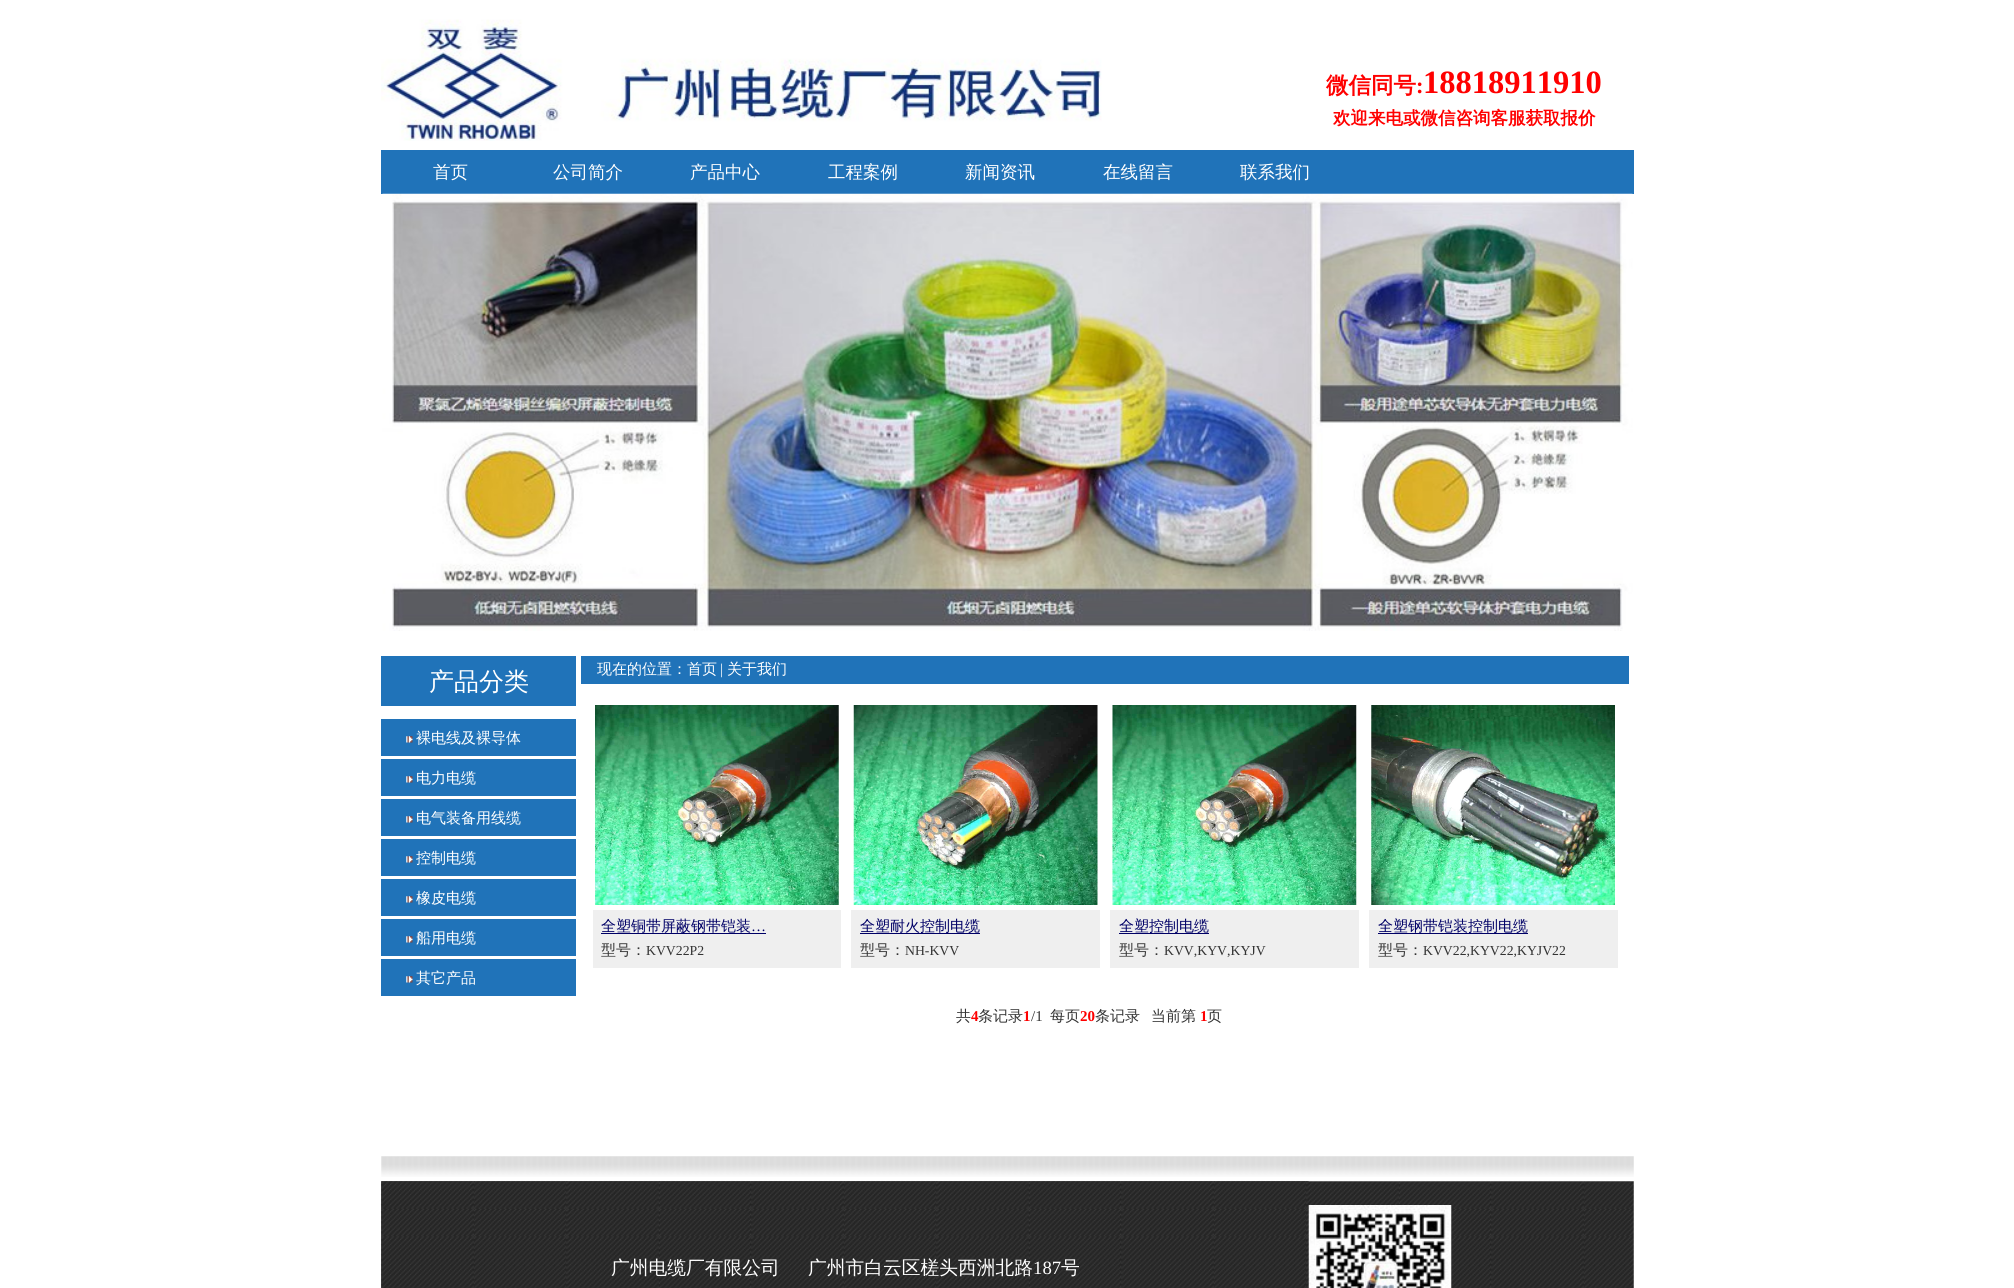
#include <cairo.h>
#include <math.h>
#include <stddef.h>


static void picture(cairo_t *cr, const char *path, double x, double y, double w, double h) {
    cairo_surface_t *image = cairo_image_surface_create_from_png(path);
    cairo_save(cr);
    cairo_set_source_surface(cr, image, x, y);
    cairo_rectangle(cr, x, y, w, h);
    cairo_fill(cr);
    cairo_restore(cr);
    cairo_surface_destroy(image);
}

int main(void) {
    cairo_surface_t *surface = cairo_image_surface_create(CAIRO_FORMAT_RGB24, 2014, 1288);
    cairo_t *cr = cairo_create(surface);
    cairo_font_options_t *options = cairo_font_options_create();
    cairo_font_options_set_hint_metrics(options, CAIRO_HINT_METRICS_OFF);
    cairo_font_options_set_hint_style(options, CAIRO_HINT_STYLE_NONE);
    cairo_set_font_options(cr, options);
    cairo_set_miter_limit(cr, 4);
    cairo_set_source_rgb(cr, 1, 1, 1);
    cairo_paint(cr);
    picture(cr, "img1.png", 381, 19, 721, 122);
    cairo_select_font_face(cr, "WenQuanYi Zen Hei", CAIRO_FONT_SLANT_NORMAL, CAIRO_FONT_WEIGHT_BOLD);
    cairo_set_font_size(cr, 22.5);
    cairo_set_source_rgb(cr, 1, 0, 0);
    cairo_move_to(cr, 1326, 93);
    cairo_show_text(cr, "微信同号");
    cairo_select_font_face(cr, "Liberation Serif", CAIRO_FONT_SLANT_NORMAL, CAIRO_FONT_WEIGHT_BOLD);
    cairo_move_to(cr, 1416, 93);
    cairo_show_text(cr, ":");
    cairo_set_font_size(cr, 32.5);
    cairo_move_to(cr, 1423, 93);
    cairo_show_text(cr, "18818911910");
    cairo_select_font_face(cr, "WenQuanYi Zen Hei", CAIRO_FONT_SLANT_NORMAL, CAIRO_FONT_WEIGHT_BOLD);
    cairo_set_font_size(cr, 17.5);
    cairo_move_to(cr, 1333, 124);
    cairo_show_text(cr, "欢迎来电或微信咨询客服获取报价");
    cairo_set_source_rgb(cr, 0.125, 0.451, 0.725);
    cairo_rectangle(cr, 381, 150, 1253, 44);
    cairo_fill(cr);
    cairo_select_font_face(cr, "WenQuanYi Zen Hei Medium", CAIRO_FONT_SLANT_NORMAL, CAIRO_FONT_WEIGHT_NORMAL);
    cairo_set_source_rgb(cr, 1, 1, 1);
    cairo_move_to(cr, 433, 178);
    cairo_show_text(cr, "首页");
    cairo_move_to(cr, 553, 178);
    cairo_show_text(cr, "公司简介");
    cairo_move_to(cr, 690, 178);
    cairo_show_text(cr, "产品中心");
    cairo_move_to(cr, 828, 178);
    cairo_show_text(cr, "工程案例");
    cairo_move_to(cr, 965, 178);
    cairo_show_text(cr, "新闻资讯");
    cairo_move_to(cr, 1103, 178);
    cairo_show_text(cr, "在线留言");
    cairo_move_to(cr, 1240, 178);
    cairo_show_text(cr, "联系我们");
    picture(cr, "img2.png", 382, 193, 1251, 438);
    cairo_set_source_rgb(cr, 0.125, 0.451, 0.725);
    cairo_rectangle(cr, 381, 656, 195, 50);
    cairo_fill(cr);
    cairo_set_font_size(cr, 25);
    cairo_set_source_rgb(cr, 1, 1, 1);
    cairo_move_to(cr, 429, 690);
    cairo_show_text(cr, "产品分类");
    cairo_set_source_rgb(cr, 0.125, 0.451, 0.725);
    cairo_rectangle(cr, 381, 719, 195, 37);
    cairo_fill(cr);
    picture(cr, "img3.png", 406, 736, 7, 7);
    cairo_set_font_size(cr, 15);
    cairo_set_source_rgb(cr, 1, 1, 1);
    cairo_move_to(cr, 416, 743);
    cairo_show_text(cr, "裸电线及裸导体");
    cairo_set_source_rgb(cr, 0.125, 0.451, 0.725);
    cairo_rectangle(cr, 381, 759, 195, 37);
    cairo_fill(cr);
    picture(cr, "img3.png", 406, 776, 7, 7);
    cairo_set_source_rgb(cr, 1, 1, 1);
    cairo_move_to(cr, 416, 783);
    cairo_show_text(cr, "电力电缆");
    cairo_set_source_rgb(cr, 0.125, 0.451, 0.725);
    cairo_rectangle(cr, 381, 799, 195, 37);
    cairo_fill(cr);
    picture(cr, "img3.png", 406, 816, 7, 7);
    cairo_set_source_rgb(cr, 1, 1, 1);
    cairo_move_to(cr, 416, 823);
    cairo_show_text(cr, "电气装备用线缆");
    cairo_set_source_rgb(cr, 0.125, 0.451, 0.725);
    cairo_rectangle(cr, 381, 839, 195, 37);
    cairo_fill(cr);
    picture(cr, "img3.png", 406, 856, 7, 7);
    cairo_set_source_rgb(cr, 1, 1, 1);
    cairo_move_to(cr, 416, 863);
    cairo_show_text(cr, "控制电缆");
    cairo_set_source_rgb(cr, 0.125, 0.451, 0.725);
    cairo_rectangle(cr, 381, 879, 195, 37);
    cairo_fill(cr);
    picture(cr, "img3.png", 406, 896, 7, 7);
    cairo_set_source_rgb(cr, 1, 1, 1);
    cairo_move_to(cr, 416, 903);
    cairo_show_text(cr, "橡皮电缆");
    cairo_set_source_rgb(cr, 0.125, 0.451, 0.725);
    cairo_rectangle(cr, 381, 919, 195, 37);
    cairo_fill(cr);
    picture(cr, "img3.png", 406, 936, 7, 7);
    cairo_set_source_rgb(cr, 1, 1, 1);
    cairo_move_to(cr, 416, 943);
    cairo_show_text(cr, "船用电缆");
    cairo_set_source_rgb(cr, 0.125, 0.451, 0.725);
    cairo_rectangle(cr, 381, 959, 195, 37);
    cairo_fill(cr);
    picture(cr, "img3.png", 406, 976, 7, 7);
    cairo_set_source_rgb(cr, 1, 1, 1);
    cairo_move_to(cr, 416, 983);
    cairo_show_text(cr, "其它产品");
    cairo_set_source_rgb(cr, 0.125, 0.451, 0.725);
    cairo_rectangle(cr, 581, 656, 1048, 28);
    cairo_fill(cr);
    cairo_set_source_rgb(cr, 1, 1, 1);
    cairo_move_to(cr, 597, 674);
    cairo_show_text(cr, "现在的位置：首页");
    cairo_select_font_face(cr, "Liberation Serif", CAIRO_FONT_SLANT_NORMAL, CAIRO_FONT_WEIGHT_NORMAL);
    cairo_move_to(cr, 720, 674);
    cairo_show_text(cr, "|");
    cairo_select_font_face(cr, "WenQuanYi Zen Hei Medium", CAIRO_FONT_SLANT_NORMAL, CAIRO_FONT_WEIGHT_NORMAL);
    cairo_move_to(cr, 727, 674);
    cairo_show_text(cr, "关于我们");
    picture(cr, "img4.png", 595, 705, 244, 200);
    cairo_set_source_rgb(cr, 0.937, 0.937, 0.937);
    cairo_rectangle(cr, 593, 910, 248, 58);
    cairo_fill(cr);
    cairo_set_source_rgb(cr, 0, 0, 0.4);
    cairo_rectangle(cr, 601, 933, 165, 1);
    cairo_fill(cr);
    cairo_move_to(cr, 601, 931);
    cairo_show_text(cr, "全塑铜带屏蔽钢带铠装");
    cairo_select_font_face(cr, "Liberation Serif", CAIRO_FONT_SLANT_NORMAL, CAIRO_FONT_WEIGHT_NORMAL);
    cairo_move_to(cr, 751, 931);
    cairo_show_text(cr, "…");
    cairo_select_font_face(cr, "WenQuanYi Zen Hei Medium", CAIRO_FONT_SLANT_NORMAL, CAIRO_FONT_WEIGHT_NORMAL);
    cairo_set_source_rgb(cr, 0.2, 0.2, 0.2);
    cairo_move_to(cr, 601, 955);
    cairo_show_text(cr, "型号：");
    cairo_select_font_face(cr, "Liberation Serif", CAIRO_FONT_SLANT_NORMAL, CAIRO_FONT_WEIGHT_NORMAL);
    cairo_set_font_size(cr, 13.75);
    cairo_move_to(cr, 646, 955);
    cairo_show_text(cr, "KVV22P2");
    picture(cr, "img5.png", 853, 705, 245, 200);
    cairo_set_source_rgb(cr, 0.937, 0.937, 0.937);
    cairo_rectangle(cr, 851, 910, 249, 58);
    cairo_fill(cr);
    cairo_set_source_rgb(cr, 0, 0, 0.4);
    cairo_rectangle(cr, 860, 933, 120, 1);
    cairo_fill(cr);
    cairo_select_font_face(cr, "WenQuanYi Zen Hei Medium", CAIRO_FONT_SLANT_NORMAL, CAIRO_FONT_WEIGHT_NORMAL);
    cairo_set_font_size(cr, 15);
    cairo_move_to(cr, 860, 931);
    cairo_show_text(cr, "全塑耐火控制电缆");
    cairo_set_source_rgb(cr, 0.2, 0.2, 0.2);
    cairo_move_to(cr, 860, 955);
    cairo_show_text(cr, "型号：");
    cairo_select_font_face(cr, "Liberation Serif", CAIRO_FONT_SLANT_NORMAL, CAIRO_FONT_WEIGHT_NORMAL);
    cairo_set_font_size(cr, 13.75);
    cairo_move_to(cr, 905, 955);
    cairo_show_text(cr, "NH-KVV");
    picture(cr, "img6.png", 1112, 705, 245, 200);
    cairo_set_source_rgb(cr, 0.937, 0.937, 0.937);
    cairo_rectangle(cr, 1110, 910, 249, 58);
    cairo_fill(cr);
    cairo_set_source_rgb(cr, 0, 0, 0.4);
    cairo_rectangle(cr, 1119, 933, 90, 1);
    cairo_fill(cr);
    cairo_select_font_face(cr, "WenQuanYi Zen Hei Medium", CAIRO_FONT_SLANT_NORMAL, CAIRO_FONT_WEIGHT_NORMAL);
    cairo_set_font_size(cr, 15);
    cairo_move_to(cr, 1119, 931);
    cairo_show_text(cr, "全塑控制电缆");
    cairo_set_source_rgb(cr, 0.2, 0.2, 0.2);
    cairo_move_to(cr, 1119, 955);
    cairo_show_text(cr, "型号：");
    cairo_select_font_face(cr, "Liberation Serif", CAIRO_FONT_SLANT_NORMAL, CAIRO_FONT_WEIGHT_NORMAL);
    cairo_set_font_size(cr, 13.75);
    cairo_move_to(cr, 1164, 955);
    cairo_show_text(cr, "KVV,KYV,KYJV");
    picture(cr, "img7.png", 1371, 705, 244, 200);
    cairo_set_source_rgb(cr, 0.937, 0.937, 0.937);
    cairo_rectangle(cr, 1369, 910, 249, 58);
    cairo_fill(cr);
    cairo_set_source_rgb(cr, 0, 0, 0.4);
    cairo_rectangle(cr, 1378, 933, 150, 1);
    cairo_fill(cr);
    cairo_select_font_face(cr, "WenQuanYi Zen Hei Medium", CAIRO_FONT_SLANT_NORMAL, CAIRO_FONT_WEIGHT_NORMAL);
    cairo_set_font_size(cr, 15);
    cairo_move_to(cr, 1378, 931);
    cairo_show_text(cr, "全塑钢带铠装控制电缆");
    cairo_set_source_rgb(cr, 0.2, 0.2, 0.2);
    cairo_move_to(cr, 1378, 955);
    cairo_show_text(cr, "型号：");
    cairo_select_font_face(cr, "Liberation Serif", CAIRO_FONT_SLANT_NORMAL, CAIRO_FONT_WEIGHT_NORMAL);
    cairo_set_font_size(cr, 13.75);
    cairo_move_to(cr, 1423, 955);
    cairo_show_text(cr, "KVV22,KYV22,KYJV22");
    cairo_select_font_face(cr, "WenQuanYi Zen Hei Medium", CAIRO_FONT_SLANT_NORMAL, CAIRO_FONT_WEIGHT_NORMAL);
    cairo_set_font_size(cr, 15);
    cairo_move_to(cr, 956, 1021);
    cairo_show_text(cr, "共");
    cairo_select_font_face(cr, "Liberation Serif", CAIRO_FONT_SLANT_NORMAL, CAIRO_FONT_WEIGHT_BOLD);
    cairo_set_source_rgb(cr, 1, 0, 0);
    cairo_move_to(cr, 971, 1021);
    cairo_show_text(cr, "4");
    cairo_select_font_face(cr, "WenQuanYi Zen Hei Medium", CAIRO_FONT_SLANT_NORMAL, CAIRO_FONT_WEIGHT_NORMAL);
    cairo_set_source_rgb(cr, 0.2, 0.2, 0.2);
    cairo_move_to(cr, 978, 1021);
    cairo_show_text(cr, "条记录");
    cairo_select_font_face(cr, "Liberation Serif", CAIRO_FONT_SLANT_NORMAL, CAIRO_FONT_WEIGHT_BOLD);
    cairo_set_source_rgb(cr, 1, 0, 0);
    cairo_move_to(cr, 1023, 1021);
    cairo_show_text(cr, "1");
    cairo_select_font_face(cr, "Liberation Serif", CAIRO_FONT_SLANT_NORMAL, CAIRO_FONT_WEIGHT_NORMAL);
    cairo_set_source_rgb(cr, 0.2, 0.2, 0.2);
    cairo_move_to(cr, 1031, 1021);
    cairo_show_text(cr, "/1");
    cairo_select_font_face(cr, "WenQuanYi Zen Hei Medium", CAIRO_FONT_SLANT_NORMAL, CAIRO_FONT_WEIGHT_NORMAL);
    cairo_move_to(cr, 1050, 1021);
    cairo_show_text(cr, "每页");
    cairo_select_font_face(cr, "Liberation Serif", CAIRO_FONT_SLANT_NORMAL, CAIRO_FONT_WEIGHT_BOLD);
    cairo_set_source_rgb(cr, 1, 0, 0);
    cairo_move_to(cr, 1080, 1021);
    cairo_show_text(cr, "20");
    cairo_select_font_face(cr, "WenQuanYi Zen Hei Medium", CAIRO_FONT_SLANT_NORMAL, CAIRO_FONT_WEIGHT_NORMAL);
    cairo_set_source_rgb(cr, 0.2, 0.2, 0.2);
    cairo_move_to(cr, 1095, 1021);
    cairo_show_text(cr, "条记录");
    cairo_move_to(cr, 1151, 1021);
    cairo_show_text(cr, "当前第");
    cairo_select_font_face(cr, "Liberation Serif", CAIRO_FONT_SLANT_NORMAL, CAIRO_FONT_WEIGHT_BOLD);
    cairo_set_source_rgb(cr, 1, 0, 0);
    cairo_move_to(cr, 1200, 1021);
    cairo_show_text(cr, "1");
    cairo_select_font_face(cr, "WenQuanYi Zen Hei Medium", CAIRO_FONT_SLANT_NORMAL, CAIRO_FONT_WEIGHT_NORMAL);
    cairo_set_source_rgb(cr, 0.2, 0.2, 0.2);
    cairo_move_to(cr, 1207, 1021);
    cairo_show_text(cr, "页");
    picture(cr, "img8.png", 381, 1156, 1253, 21);
    picture(cr, "img9.png", 381, 1181, 1253, 107);
    picture(cr, "img10.png", 381, 1181, 928, 107);
    cairo_set_font_size(cr, 18.75);
    cairo_set_source_rgb(cr, 1, 1, 1);
    cairo_move_to(cr, 611, 1274);
    cairo_show_text(cr, "广州电缆厂有限公司");
    cairo_move_to(cr, 808, 1274);
    cairo_show_text(cr, "广州市白云区槎头西洲北路");
    cairo_select_font_face(cr, "Liberation Serif", CAIRO_FONT_SLANT_NORMAL, CAIRO_FONT_WEIGHT_NORMAL);
    cairo_move_to(cr, 1033, 1274);
    cairo_show_text(cr, "187");
    cairo_select_font_face(cr, "WenQuanYi Zen Hei Medium", CAIRO_FONT_SLANT_NORMAL, CAIRO_FONT_WEIGHT_NORMAL);
    cairo_move_to(cr, 1061, 1274);
    cairo_show_text(cr, "号");
    picture(cr, "img11.png", 1308, 1205, 144, 83);
    cairo_surface_write_to_png(surface, "page.png");
    cairo_font_options_destroy(options);
    cairo_destroy(cr);
    cairo_surface_destroy(surface);
    return 0;
}
